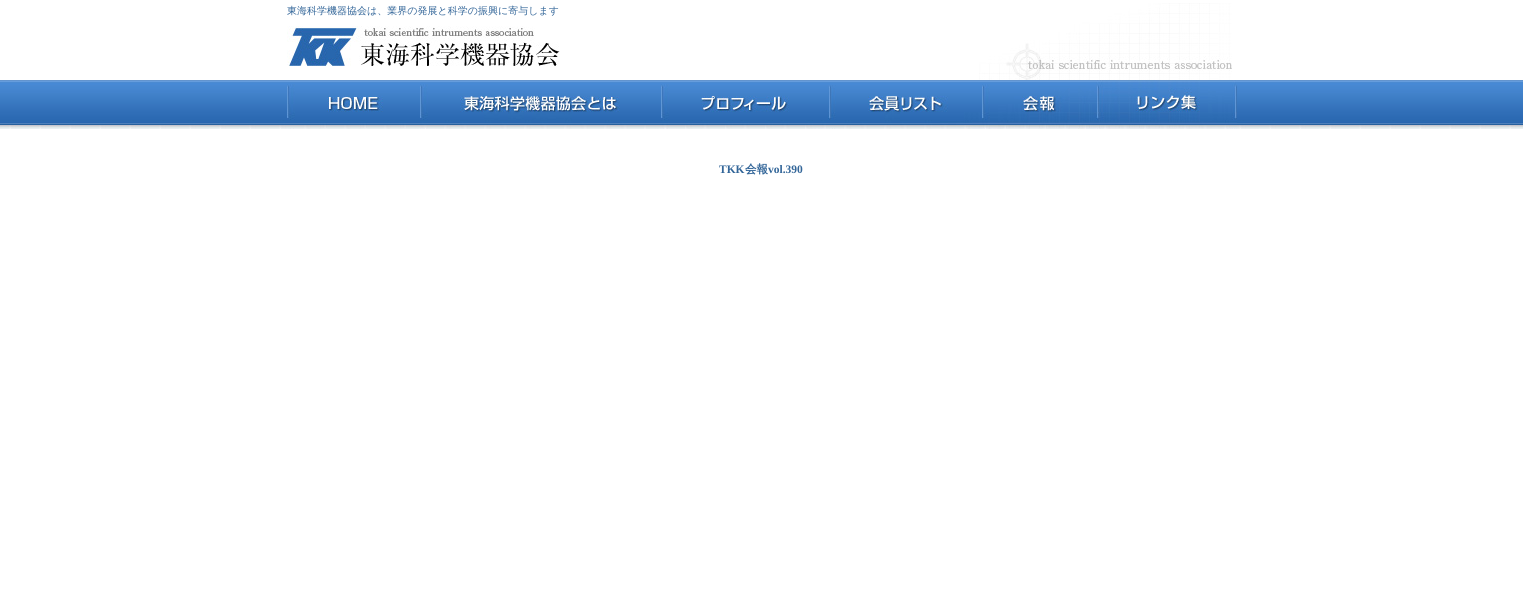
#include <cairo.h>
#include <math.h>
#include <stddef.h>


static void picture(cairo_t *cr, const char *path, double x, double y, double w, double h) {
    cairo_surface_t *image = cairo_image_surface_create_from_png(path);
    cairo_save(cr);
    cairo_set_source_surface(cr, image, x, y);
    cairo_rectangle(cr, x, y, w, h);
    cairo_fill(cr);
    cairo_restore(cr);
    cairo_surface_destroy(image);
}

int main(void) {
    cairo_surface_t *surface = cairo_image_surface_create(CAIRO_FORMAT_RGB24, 1523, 616);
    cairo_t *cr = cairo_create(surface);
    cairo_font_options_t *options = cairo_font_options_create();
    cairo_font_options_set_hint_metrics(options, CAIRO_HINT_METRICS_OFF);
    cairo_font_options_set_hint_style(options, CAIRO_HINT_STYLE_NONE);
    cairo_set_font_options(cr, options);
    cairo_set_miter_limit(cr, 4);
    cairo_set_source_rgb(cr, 1, 1, 1);
    cairo_paint(cr);
    picture(cr, "img1.png", 0, 80, 1523, 49);
    cairo_select_font_face(cr, "WenQuanYi Zen Hei Medium", CAIRO_FONT_SLANT_NORMAL, CAIRO_FONT_WEIGHT_NORMAL);
    cairo_set_font_size(cr, 10);
    cairo_set_source_rgb(cr, 0.2, 0.4, 0.6);
    cairo_move_to(cr, 287, 14);
    cairo_show_text(cr, "東海科学機器協会は、業界の発展と科学の振興に寄与します");
    picture(cr, "img2.png", 979, 3, 253, 77);
    picture(cr, "img3.png", 287, 26, 273, 40);
    picture(cr, "img4.png", 287, 84, 119, 45);
    picture(cr, "img5.png", 420, 84, 226, 45);
    picture(cr, "img6.png", 661, 84, 165, 45);
    picture(cr, "img7.png", 828, 85, 154, 44);
    picture(cr, "img8.png", 982, 84, 114, 45);
    picture(cr, "img9.png", 1096, 80, 141, 49);
    cairo_select_font_face(cr, "Liberation Serif", CAIRO_FONT_SLANT_NORMAL, CAIRO_FONT_WEIGHT_BOLD);
    cairo_set_font_size(cr, 11.5);
    cairo_move_to(cr, 719, 173);
    cairo_show_text(cr, "TKK");
    cairo_select_font_face(cr, "WenQuanYi Zen Hei", CAIRO_FONT_SLANT_NORMAL, CAIRO_FONT_WEIGHT_BOLD);
    cairo_move_to(cr, 745, 173);
    cairo_show_text(cr, "会報");
    cairo_select_font_face(cr, "Liberation Serif", CAIRO_FONT_SLANT_NORMAL, CAIRO_FONT_WEIGHT_BOLD);
    cairo_move_to(cr, 768, 173);
    cairo_show_text(cr, "vol.390");
    cairo_surface_write_to_png(surface, "page.png");
    cairo_font_options_destroy(options);
    cairo_destroy(cr);
    cairo_surface_destroy(surface);
    return 0;
}
